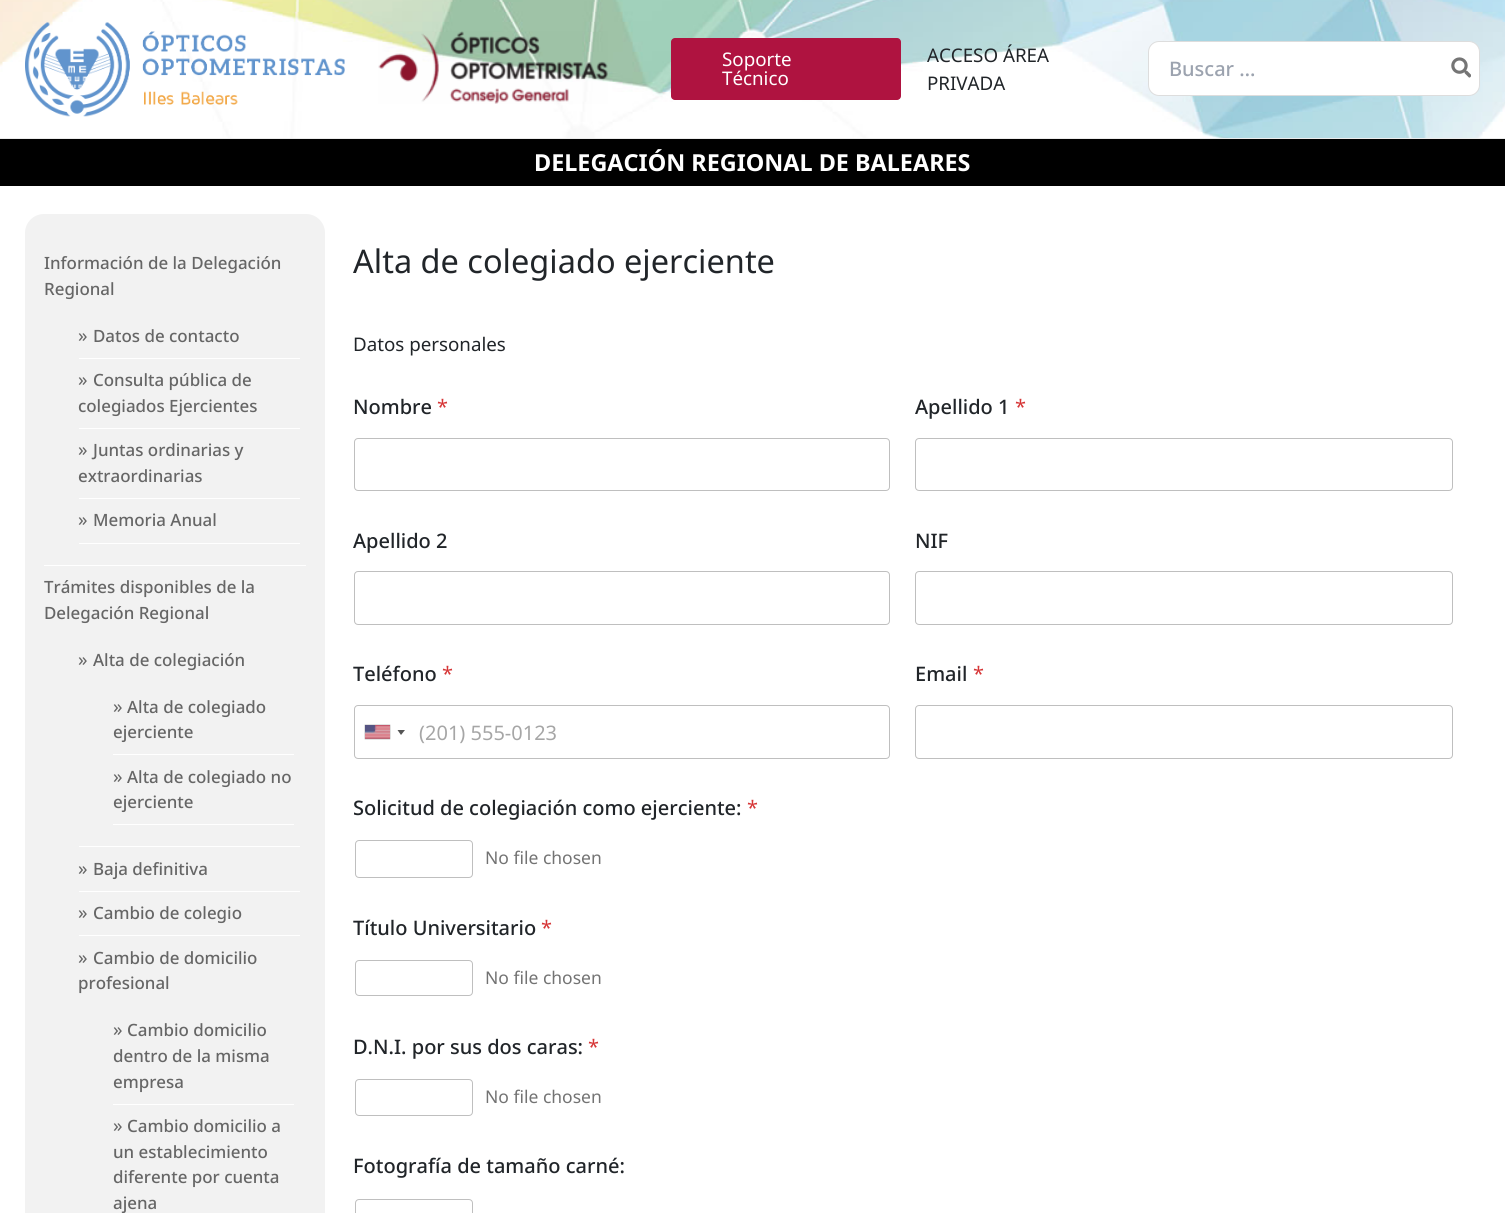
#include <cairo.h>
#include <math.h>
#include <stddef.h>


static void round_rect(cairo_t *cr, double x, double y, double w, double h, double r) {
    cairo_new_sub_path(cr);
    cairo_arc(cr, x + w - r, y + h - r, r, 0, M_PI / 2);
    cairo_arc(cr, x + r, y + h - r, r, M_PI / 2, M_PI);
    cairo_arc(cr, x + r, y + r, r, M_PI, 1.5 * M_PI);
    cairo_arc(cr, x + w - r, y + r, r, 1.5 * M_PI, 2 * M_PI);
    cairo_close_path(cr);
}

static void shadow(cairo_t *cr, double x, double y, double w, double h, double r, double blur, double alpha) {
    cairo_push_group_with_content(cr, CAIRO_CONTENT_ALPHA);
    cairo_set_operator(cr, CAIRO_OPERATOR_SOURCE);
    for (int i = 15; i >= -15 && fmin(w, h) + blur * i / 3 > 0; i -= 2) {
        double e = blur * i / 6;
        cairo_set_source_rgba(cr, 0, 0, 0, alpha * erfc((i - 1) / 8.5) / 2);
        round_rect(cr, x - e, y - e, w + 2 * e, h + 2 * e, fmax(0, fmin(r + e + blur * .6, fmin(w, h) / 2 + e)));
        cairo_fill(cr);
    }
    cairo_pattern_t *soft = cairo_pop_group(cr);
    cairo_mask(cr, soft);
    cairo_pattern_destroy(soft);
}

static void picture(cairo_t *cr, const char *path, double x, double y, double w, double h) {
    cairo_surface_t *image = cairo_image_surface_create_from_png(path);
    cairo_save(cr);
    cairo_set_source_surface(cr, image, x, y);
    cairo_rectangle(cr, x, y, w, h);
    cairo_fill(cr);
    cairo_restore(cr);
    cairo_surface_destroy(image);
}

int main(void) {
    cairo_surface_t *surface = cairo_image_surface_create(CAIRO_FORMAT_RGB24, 1505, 1213);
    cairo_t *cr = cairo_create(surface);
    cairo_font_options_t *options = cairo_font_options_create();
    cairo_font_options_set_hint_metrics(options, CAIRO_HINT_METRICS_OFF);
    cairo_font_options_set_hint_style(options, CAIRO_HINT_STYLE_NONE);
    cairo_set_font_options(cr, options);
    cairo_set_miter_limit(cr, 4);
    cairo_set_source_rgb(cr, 1, 1, 1);
    cairo_paint(cr);
    picture(cr, "img1.png", 0, 0, 1505, 138);
    cairo_set_source_rgb(cr, 0.918, 0.918, 0.918);
    cairo_rectangle(cr, 0, 138, 1505, 1);
    cairo_fill(cr);
    picture(cr, "img2.png", 25, 22, 320, 95);
    picture(cr, "img3.png", 378, 31, 230, 73);
    cairo_set_source_rgb(cr, 0.686, 0.078, 0.251);
    round_rect(cr, 671, 38, 230, 62, 4);
    cairo_fill(cr);
    cairo_select_font_face(cr, "Noto Sans", CAIRO_FONT_SLANT_NORMAL, CAIRO_FONT_WEIGHT_NORMAL);
    cairo_set_font_size(cr, 18.75);
    cairo_set_source_rgb(cr, 1, 1, 1);
    cairo_move_to(cr, 722, 66);
    cairo_show_text(cr, "Soporte");
    cairo_move_to(cr, 722, 85);
    cairo_show_text(cr, "Técnico");
    cairo_set_source_rgb(cr, 0.129, 0.145, 0.161);
    cairo_move_to(cr, 927, 62);
    cairo_show_text(cr, "ACCESO ÁREA");
    cairo_move_to(cr, 927, 90);
    cairo_show_text(cr, "PRIVADA");
    cairo_set_source_rgb(cr, 1, 1, 1);
    round_rect(cr, 1148.5, 41.5, 331, 54, 10.5);
    cairo_fill_preserve(cr);
    cairo_set_source_rgb(cr, 0.867, 0.867, 0.867);
    cairo_set_line_width(cr, 1);
    cairo_stroke(cr);
    cairo_select_font_face(cr, "Noto Sans Medium", CAIRO_FONT_SLANT_NORMAL, CAIRO_FONT_WEIGHT_NORMAL);
    cairo_set_font_size(cr, 20);
    cairo_set_source_rgb(cr, 0.612, 0.639, 0.686);
    cairo_move_to(cr, 1169, 76);
    cairo_show_text(cr, "Buscar …");
    picture(cr, "img4.png", 1451, 57, 20, 21);
    cairo_set_source_rgb(cr, 0, 0, 0);
    cairo_rectangle(cr, 0, 139, 1505, 47);
    cairo_fill(cr);
    cairo_select_font_face(cr, "Noto Sans", CAIRO_FONT_SLANT_NORMAL, CAIRO_FONT_WEIGHT_BOLD);
    cairo_set_font_size(cr, 23.4);
    cairo_set_source_rgb(cr, 1, 1, 1);
    cairo_move_to(cr, 534, 171);
    cairo_show_text(cr, "DELEGACIÓN REGIONAL DE BALEARES");
    cairo_set_source_rgb(cr, 0.949, 0.949, 0.949);
    round_rect(cr, 25, 214, 300, 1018, 19);
    cairo_fill(cr);
    cairo_set_source_rgb(cr, 1, 1, 1);
    cairo_rectangle(cr, 44, 565, 262, 1);
    cairo_fill(cr);
    cairo_select_font_face(cr, "Noto Sans Medium", CAIRO_FONT_SLANT_NORMAL, CAIRO_FONT_WEIGHT_NORMAL);
    cairo_set_font_size(cr, 16.9);
    cairo_set_source_rgb(cr, 0.4, 0.4, 0.4);
    cairo_move_to(cr, 44, 269);
    cairo_show_text(cr, "Información de la Delegación");
    cairo_move_to(cr, 44, 295);
    cairo_show_text(cr, "Regional");
    cairo_set_source_rgb(cr, 1, 1, 1);
    cairo_rectangle(cr, 79, 358, 221, 1);
    cairo_fill(cr);
    cairo_select_font_face(cr, "Noto Sans", CAIRO_FONT_SLANT_NORMAL, CAIRO_FONT_WEIGHT_NORMAL);
    cairo_set_font_size(cr, 18.75);
    cairo_set_source_rgb(cr, 0.4, 0.4, 0.4);
    cairo_move_to(cr, 78, 342);
    cairo_show_text(cr, "»");
    cairo_select_font_face(cr, "Noto Sans Medium", CAIRO_FONT_SLANT_NORMAL, CAIRO_FONT_WEIGHT_NORMAL);
    cairo_set_font_size(cr, 16.9);
    cairo_move_to(cr, 93, 342);
    cairo_show_text(cr, "Datos de contacto");
    cairo_set_source_rgb(cr, 1, 1, 1);
    cairo_rectangle(cr, 79, 428, 221, 1);
    cairo_fill(cr);
    cairo_select_font_face(cr, "Noto Sans", CAIRO_FONT_SLANT_NORMAL, CAIRO_FONT_WEIGHT_NORMAL);
    cairo_set_font_size(cr, 18.75);
    cairo_set_source_rgb(cr, 0.4, 0.4, 0.4);
    cairo_move_to(cr, 78, 386);
    cairo_show_text(cr, "»");
    cairo_select_font_face(cr, "Noto Sans Medium", CAIRO_FONT_SLANT_NORMAL, CAIRO_FONT_WEIGHT_NORMAL);
    cairo_set_font_size(cr, 16.9);
    cairo_move_to(cr, 93, 386);
    cairo_show_text(cr, "Consulta pública de");
    cairo_move_to(cr, 78, 412);
    cairo_show_text(cr, "colegiados Ejercientes");
    cairo_set_source_rgb(cr, 1, 1, 1);
    cairo_rectangle(cr, 79, 498, 221, 1);
    cairo_fill(cr);
    cairo_select_font_face(cr, "Noto Sans", CAIRO_FONT_SLANT_NORMAL, CAIRO_FONT_WEIGHT_NORMAL);
    cairo_set_font_size(cr, 18.75);
    cairo_set_source_rgb(cr, 0.4, 0.4, 0.4);
    cairo_move_to(cr, 78, 456);
    cairo_show_text(cr, "»");
    cairo_select_font_face(cr, "Noto Sans Medium", CAIRO_FONT_SLANT_NORMAL, CAIRO_FONT_WEIGHT_NORMAL);
    cairo_set_font_size(cr, 16.9);
    cairo_move_to(cr, 93, 456);
    cairo_show_text(cr, "Juntas ordinarias y");
    cairo_move_to(cr, 78, 482);
    cairo_show_text(cr, "extraordinarias");
    cairo_set_source_rgb(cr, 1, 1, 1);
    cairo_rectangle(cr, 79, 543, 221, 1);
    cairo_fill(cr);
    cairo_select_font_face(cr, "Noto Sans", CAIRO_FONT_SLANT_NORMAL, CAIRO_FONT_WEIGHT_NORMAL);
    cairo_set_font_size(cr, 18.75);
    cairo_set_source_rgb(cr, 0.4, 0.4, 0.4);
    cairo_move_to(cr, 78, 526);
    cairo_show_text(cr, "»");
    cairo_select_font_face(cr, "Noto Sans Medium", CAIRO_FONT_SLANT_NORMAL, CAIRO_FONT_WEIGHT_NORMAL);
    cairo_set_font_size(cr, 16.9);
    cairo_move_to(cr, 93, 526);
    cairo_show_text(cr, "Memoria Anual");
    cairo_move_to(cr, 44, 593);
    cairo_show_text(cr, "Trámites disponibles de la");
    cairo_move_to(cr, 44, 619);
    cairo_show_text(cr, "Delegación Regional");
    cairo_set_source_rgb(cr, 1, 1, 1);
    cairo_rectangle(cr, 79, 846, 221, 1);
    cairo_fill(cr);
    cairo_select_font_face(cr, "Noto Sans", CAIRO_FONT_SLANT_NORMAL, CAIRO_FONT_WEIGHT_NORMAL);
    cairo_set_font_size(cr, 18.75);
    cairo_set_source_rgb(cr, 0.4, 0.4, 0.4);
    cairo_move_to(cr, 78, 666);
    cairo_show_text(cr, "»");
    cairo_select_font_face(cr, "Noto Sans Medium", CAIRO_FONT_SLANT_NORMAL, CAIRO_FONT_WEIGHT_NORMAL);
    cairo_set_font_size(cr, 16.9);
    cairo_move_to(cr, 93, 666);
    cairo_show_text(cr, "Alta de colegiación");
    cairo_set_source_rgb(cr, 1, 1, 1);
    cairo_rectangle(cr, 113, 754, 181, 1);
    cairo_fill(cr);
    cairo_select_font_face(cr, "Noto Sans", CAIRO_FONT_SLANT_NORMAL, CAIRO_FONT_WEIGHT_NORMAL);
    cairo_set_font_size(cr, 18.75);
    cairo_set_source_rgb(cr, 0.4, 0.4, 0.4);
    cairo_move_to(cr, 113, 713);
    cairo_show_text(cr, "»");
    cairo_select_font_face(cr, "Noto Sans Medium", CAIRO_FONT_SLANT_NORMAL, CAIRO_FONT_WEIGHT_NORMAL);
    cairo_set_font_size(cr, 16.9);
    cairo_move_to(cr, 127, 713);
    cairo_show_text(cr, "Alta de colegiado");
    cairo_move_to(cr, 113, 738);
    cairo_show_text(cr, "ejerciente");
    cairo_set_source_rgb(cr, 1, 1, 1);
    cairo_rectangle(cr, 113, 824, 181, 1);
    cairo_fill(cr);
    cairo_select_font_face(cr, "Noto Sans", CAIRO_FONT_SLANT_NORMAL, CAIRO_FONT_WEIGHT_NORMAL);
    cairo_set_font_size(cr, 18.75);
    cairo_set_source_rgb(cr, 0.4, 0.4, 0.4);
    cairo_move_to(cr, 113, 783);
    cairo_show_text(cr, "»");
    cairo_select_font_face(cr, "Noto Sans Medium", CAIRO_FONT_SLANT_NORMAL, CAIRO_FONT_WEIGHT_NORMAL);
    cairo_set_font_size(cr, 16.9);
    cairo_move_to(cr, 127, 783);
    cairo_show_text(cr, "Alta de colegiado no");
    cairo_move_to(cr, 113, 808);
    cairo_show_text(cr, "ejerciente");
    cairo_set_source_rgb(cr, 1, 1, 1);
    cairo_rectangle(cr, 79, 891, 221, 1);
    cairo_fill(cr);
    cairo_select_font_face(cr, "Noto Sans", CAIRO_FONT_SLANT_NORMAL, CAIRO_FONT_WEIGHT_NORMAL);
    cairo_set_font_size(cr, 18.75);
    cairo_set_source_rgb(cr, 0.4, 0.4, 0.4);
    cairo_move_to(cr, 78, 875);
    cairo_show_text(cr, "»");
    cairo_select_font_face(cr, "Noto Sans Medium", CAIRO_FONT_SLANT_NORMAL, CAIRO_FONT_WEIGHT_NORMAL);
    cairo_set_font_size(cr, 16.9);
    cairo_move_to(cr, 93, 875);
    cairo_show_text(cr, "Baja definitiva");
    cairo_set_source_rgb(cr, 1, 1, 1);
    cairo_rectangle(cr, 79, 935, 221, 1);
    cairo_fill(cr);
    cairo_select_font_face(cr, "Noto Sans", CAIRO_FONT_SLANT_NORMAL, CAIRO_FONT_WEIGHT_NORMAL);
    cairo_set_font_size(cr, 18.75);
    cairo_set_source_rgb(cr, 0.4, 0.4, 0.4);
    cairo_move_to(cr, 78, 919);
    cairo_show_text(cr, "»");
    cairo_select_font_face(cr, "Noto Sans Medium", CAIRO_FONT_SLANT_NORMAL, CAIRO_FONT_WEIGHT_NORMAL);
    cairo_set_font_size(cr, 16.9);
    cairo_move_to(cr, 93, 919);
    cairo_show_text(cr, "Cambio de colegio");
    cairo_select_font_face(cr, "Noto Sans", CAIRO_FONT_SLANT_NORMAL, CAIRO_FONT_WEIGHT_NORMAL);
    cairo_set_font_size(cr, 18.75);
    cairo_move_to(cr, 78, 964);
    cairo_show_text(cr, "»");
    cairo_select_font_face(cr, "Noto Sans Medium", CAIRO_FONT_SLANT_NORMAL, CAIRO_FONT_WEIGHT_NORMAL);
    cairo_set_font_size(cr, 16.9);
    cairo_move_to(cr, 93, 964);
    cairo_show_text(cr, "Cambio de domicilio");
    cairo_move_to(cr, 78, 989);
    cairo_show_text(cr, "profesional");
    cairo_set_source_rgb(cr, 1, 1, 1);
    cairo_rectangle(cr, 113, 1104, 181, 1);
    cairo_fill(cr);
    cairo_select_font_face(cr, "Noto Sans", CAIRO_FONT_SLANT_NORMAL, CAIRO_FONT_WEIGHT_NORMAL);
    cairo_set_font_size(cr, 18.75);
    cairo_set_source_rgb(cr, 0.4, 0.4, 0.4);
    cairo_move_to(cr, 113, 1036);
    cairo_show_text(cr, "»");
    cairo_select_font_face(cr, "Noto Sans Medium", CAIRO_FONT_SLANT_NORMAL, CAIRO_FONT_WEIGHT_NORMAL);
    cairo_set_font_size(cr, 16.9);
    cairo_move_to(cr, 127, 1036);
    cairo_show_text(cr, "Cambio domicilio");
    cairo_move_to(cr, 113, 1062);
    cairo_show_text(cr, "dentro de la misma");
    cairo_move_to(cr, 113, 1088);
    cairo_show_text(cr, "empresa");
    cairo_select_font_face(cr, "Noto Sans", CAIRO_FONT_SLANT_NORMAL, CAIRO_FONT_WEIGHT_NORMAL);
    cairo_set_font_size(cr, 18.75);
    cairo_move_to(cr, 113, 1132);
    cairo_show_text(cr, "»");
    cairo_select_font_face(cr, "Noto Sans Medium", CAIRO_FONT_SLANT_NORMAL, CAIRO_FONT_WEIGHT_NORMAL);
    cairo_set_font_size(cr, 16.9);
    cairo_move_to(cr, 127, 1132);
    cairo_show_text(cr, "Cambio domicilio a");
    cairo_move_to(cr, 113, 1158);
    cairo_show_text(cr, "un establecimiento");
    cairo_move_to(cr, 113, 1183);
    cairo_show_text(cr, "diferente por cuenta");
    cairo_move_to(cr, 113, 1209);
    cairo_show_text(cr, "ajena");
    cairo_select_font_face(cr, "Noto Sans", CAIRO_FONT_SLANT_NORMAL, CAIRO_FONT_WEIGHT_NORMAL);
    cairo_set_font_size(cr, 32.5);
    cairo_set_source_rgb(cr, 0.129, 0.145, 0.161);
    cairo_move_to(cr, 353, 273);
    cairo_show_text(cr, "Alta de colegiado ejerciente");
    cairo_set_font_size(cr, 18.75);
    cairo_move_to(cr, 353, 351);
    cairo_show_text(cr, "Datos personales");
    cairo_select_font_face(cr, "Noto Sans Medium", CAIRO_FONT_SLANT_NORMAL, CAIRO_FONT_WEIGHT_NORMAL);
    cairo_set_font_size(cr, 20);
    cairo_move_to(cr, 353, 414);
    cairo_show_text(cr, "Nombre");
    cairo_select_font_face(cr, "Noto Sans", CAIRO_FONT_SLANT_NORMAL, CAIRO_FONT_WEIGHT_NORMAL);
    cairo_set_source_rgb(cr, 0.839, 0.212, 0.216);
    cairo_move_to(cr, 437, 414);
    cairo_show_text(cr, "*");
    round_rect(cr, 354.5, 438.5, 535, 52, 3.5);
    cairo_set_source_rgb(cr, 0.749, 0.749, 0.749);
    cairo_stroke(cr);
    cairo_select_font_face(cr, "Noto Sans Medium", CAIRO_FONT_SLANT_NORMAL, CAIRO_FONT_WEIGHT_NORMAL);
    cairo_set_source_rgb(cr, 0.129, 0.145, 0.161);
    cairo_move_to(cr, 353, 548);
    cairo_show_text(cr, "Apellido 2");
    round_rect(cr, 354.5, 571.5, 535, 53, 3.5);
    cairo_set_source_rgb(cr, 0.749, 0.749, 0.749);
    cairo_stroke(cr);
    cairo_set_source_rgb(cr, 0.129, 0.145, 0.161);
    cairo_move_to(cr, 353, 681);
    cairo_show_text(cr, "Teléfono");
    cairo_select_font_face(cr, "Noto Sans", CAIRO_FONT_SLANT_NORMAL, CAIRO_FONT_WEIGHT_NORMAL);
    cairo_set_source_rgb(cr, 0.839, 0.212, 0.216);
    cairo_move_to(cr, 442, 681);
    cairo_show_text(cr, "*");
    round_rect(cr, 354.5, 705.5, 535, 53, 3.5);
    cairo_set_source_rgb(cr, 0.749, 0.749, 0.749);
    cairo_stroke(cr);
    cairo_set_source_rgb(cr, 0.533, 0.533, 0.533);
    shadow(cr, 365, 725, 25, 14, 0, 0.5, 1);
    picture(cr, "img5.png", 365, 725, 25, 14);
    cairo_set_source_rgb(cr, 0.333, 0.333, 0.333);
    cairo_new_path(cr);
    cairo_move_to(cr, 397.5, 730);
    cairo_line_to(cr, 405, 730);
    cairo_line_to(cr, 401, 735);
    cairo_close_path(cr);
    cairo_fill(cr);
    cairo_set_source_rgb(cr, 0.651, 0.651, 0.651);
    cairo_move_to(cr, 419, 740);
    cairo_show_text(cr, "(201) 555-0123");
    cairo_select_font_face(cr, "Noto Sans Medium", CAIRO_FONT_SLANT_NORMAL, CAIRO_FONT_WEIGHT_NORMAL);
    cairo_set_source_rgb(cr, 0.129, 0.145, 0.161);
    cairo_move_to(cr, 915, 414);
    cairo_show_text(cr, "Apellido 1");
    cairo_select_font_face(cr, "Noto Sans", CAIRO_FONT_SLANT_NORMAL, CAIRO_FONT_WEIGHT_NORMAL);
    cairo_set_source_rgb(cr, 0.839, 0.212, 0.216);
    cairo_move_to(cr, 1015, 414);
    cairo_show_text(cr, "*");
    round_rect(cr, 915.5, 438.5, 537, 52, 3.5);
    cairo_set_source_rgb(cr, 0.749, 0.749, 0.749);
    cairo_stroke(cr);
    cairo_select_font_face(cr, "Noto Sans Medium", CAIRO_FONT_SLANT_NORMAL, CAIRO_FONT_WEIGHT_NORMAL);
    cairo_set_source_rgb(cr, 0.129, 0.145, 0.161);
    cairo_move_to(cr, 915, 548);
    cairo_show_text(cr, "NIF");
    round_rect(cr, 915.5, 571.5, 537, 53, 3.5);
    cairo_set_source_rgb(cr, 0.749, 0.749, 0.749);
    cairo_stroke(cr);
    cairo_set_source_rgb(cr, 0.129, 0.145, 0.161);
    cairo_move_to(cr, 915, 681);
    cairo_show_text(cr, "Email");
    cairo_select_font_face(cr, "Noto Sans", CAIRO_FONT_SLANT_NORMAL, CAIRO_FONT_WEIGHT_NORMAL);
    cairo_set_source_rgb(cr, 0.839, 0.212, 0.216);
    cairo_move_to(cr, 973, 681);
    cairo_show_text(cr, "*");
    round_rect(cr, 915.5, 705.5, 537, 53, 3.5);
    cairo_set_source_rgb(cr, 0.749, 0.749, 0.749);
    cairo_stroke(cr);
    cairo_select_font_face(cr, "Noto Sans Medium", CAIRO_FONT_SLANT_NORMAL, CAIRO_FONT_WEIGHT_NORMAL);
    cairo_set_source_rgb(cr, 0.129, 0.145, 0.161);
    cairo_move_to(cr, 353, 815);
    cairo_show_text(cr, "Solicitud de colegiación como ejerciente:");
    cairo_select_font_face(cr, "Noto Sans", CAIRO_FONT_SLANT_NORMAL, CAIRO_FONT_WEIGHT_NORMAL);
    cairo_set_source_rgb(cr, 0.839, 0.212, 0.216);
    cairo_move_to(cr, 747, 815);
    cairo_show_text(cr, "*");
    round_rect(cr, 355.5, 840.5, 117, 37, 3.5);
    cairo_set_source_rgb(cr, 0.749, 0.749, 0.749);
    cairo_stroke(cr);
    cairo_set_font_size(cr, 17.5);
    cairo_set_source_rgb(cr, 0.451, 0.451, 0.451);
    cairo_move_to(cr, 485, 864);
    cairo_show_text(cr, "No file chosen");
    cairo_select_font_face(cr, "Noto Sans Medium", CAIRO_FONT_SLANT_NORMAL, CAIRO_FONT_WEIGHT_NORMAL);
    cairo_set_font_size(cr, 20);
    cairo_set_source_rgb(cr, 0.129, 0.145, 0.161);
    cairo_move_to(cr, 353, 935);
    cairo_show_text(cr, "Título Universitario");
    cairo_select_font_face(cr, "Noto Sans", CAIRO_FONT_SLANT_NORMAL, CAIRO_FONT_WEIGHT_NORMAL);
    cairo_set_source_rgb(cr, 0.839, 0.212, 0.216);
    cairo_move_to(cr, 541, 935);
    cairo_show_text(cr, "*");
    round_rect(cr, 355.5, 960.5, 117, 35, 3.5);
    cairo_set_source_rgb(cr, 0.749, 0.749, 0.749);
    cairo_stroke(cr);
    cairo_set_font_size(cr, 17.5);
    cairo_set_source_rgb(cr, 0.451, 0.451, 0.451);
    cairo_move_to(cr, 485, 984);
    cairo_show_text(cr, "No file chosen");
    cairo_select_font_face(cr, "Noto Sans Medium", CAIRO_FONT_SLANT_NORMAL, CAIRO_FONT_WEIGHT_NORMAL);
    cairo_set_font_size(cr, 20);
    cairo_set_source_rgb(cr, 0.129, 0.145, 0.161);
    cairo_move_to(cr, 353, 1054);
    cairo_show_text(cr, "D.N.I. por sus dos caras:");
    cairo_select_font_face(cr, "Noto Sans", CAIRO_FONT_SLANT_NORMAL, CAIRO_FONT_WEIGHT_NORMAL);
    cairo_set_source_rgb(cr, 0.839, 0.212, 0.216);
    cairo_move_to(cr, 588, 1054);
    cairo_show_text(cr, "*");
    round_rect(cr, 355.5, 1079.5, 117, 36, 3.5);
    cairo_set_source_rgb(cr, 0.749, 0.749, 0.749);
    cairo_stroke(cr);
    cairo_set_font_size(cr, 17.5);
    cairo_set_source_rgb(cr, 0.451, 0.451, 0.451);
    cairo_move_to(cr, 485, 1103);
    cairo_show_text(cr, "No file chosen");
    cairo_select_font_face(cr, "Noto Sans Medium", CAIRO_FONT_SLANT_NORMAL, CAIRO_FONT_WEIGHT_NORMAL);
    cairo_set_font_size(cr, 20);
    cairo_set_source_rgb(cr, 0.129, 0.145, 0.161);
    cairo_move_to(cr, 353, 1173);
    cairo_show_text(cr, "Fotografía de tamaño carné:");
    round_rect(cr, 355.5, 1199.5, 117, 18, 3.5);
    cairo_set_source_rgb(cr, 0.749, 0.749, 0.749);
    cairo_stroke(cr);
    cairo_surface_write_to_png(surface, "page.png");
    cairo_font_options_destroy(options);
    cairo_destroy(cr);
    cairo_surface_destroy(surface);
    return 0;
}
